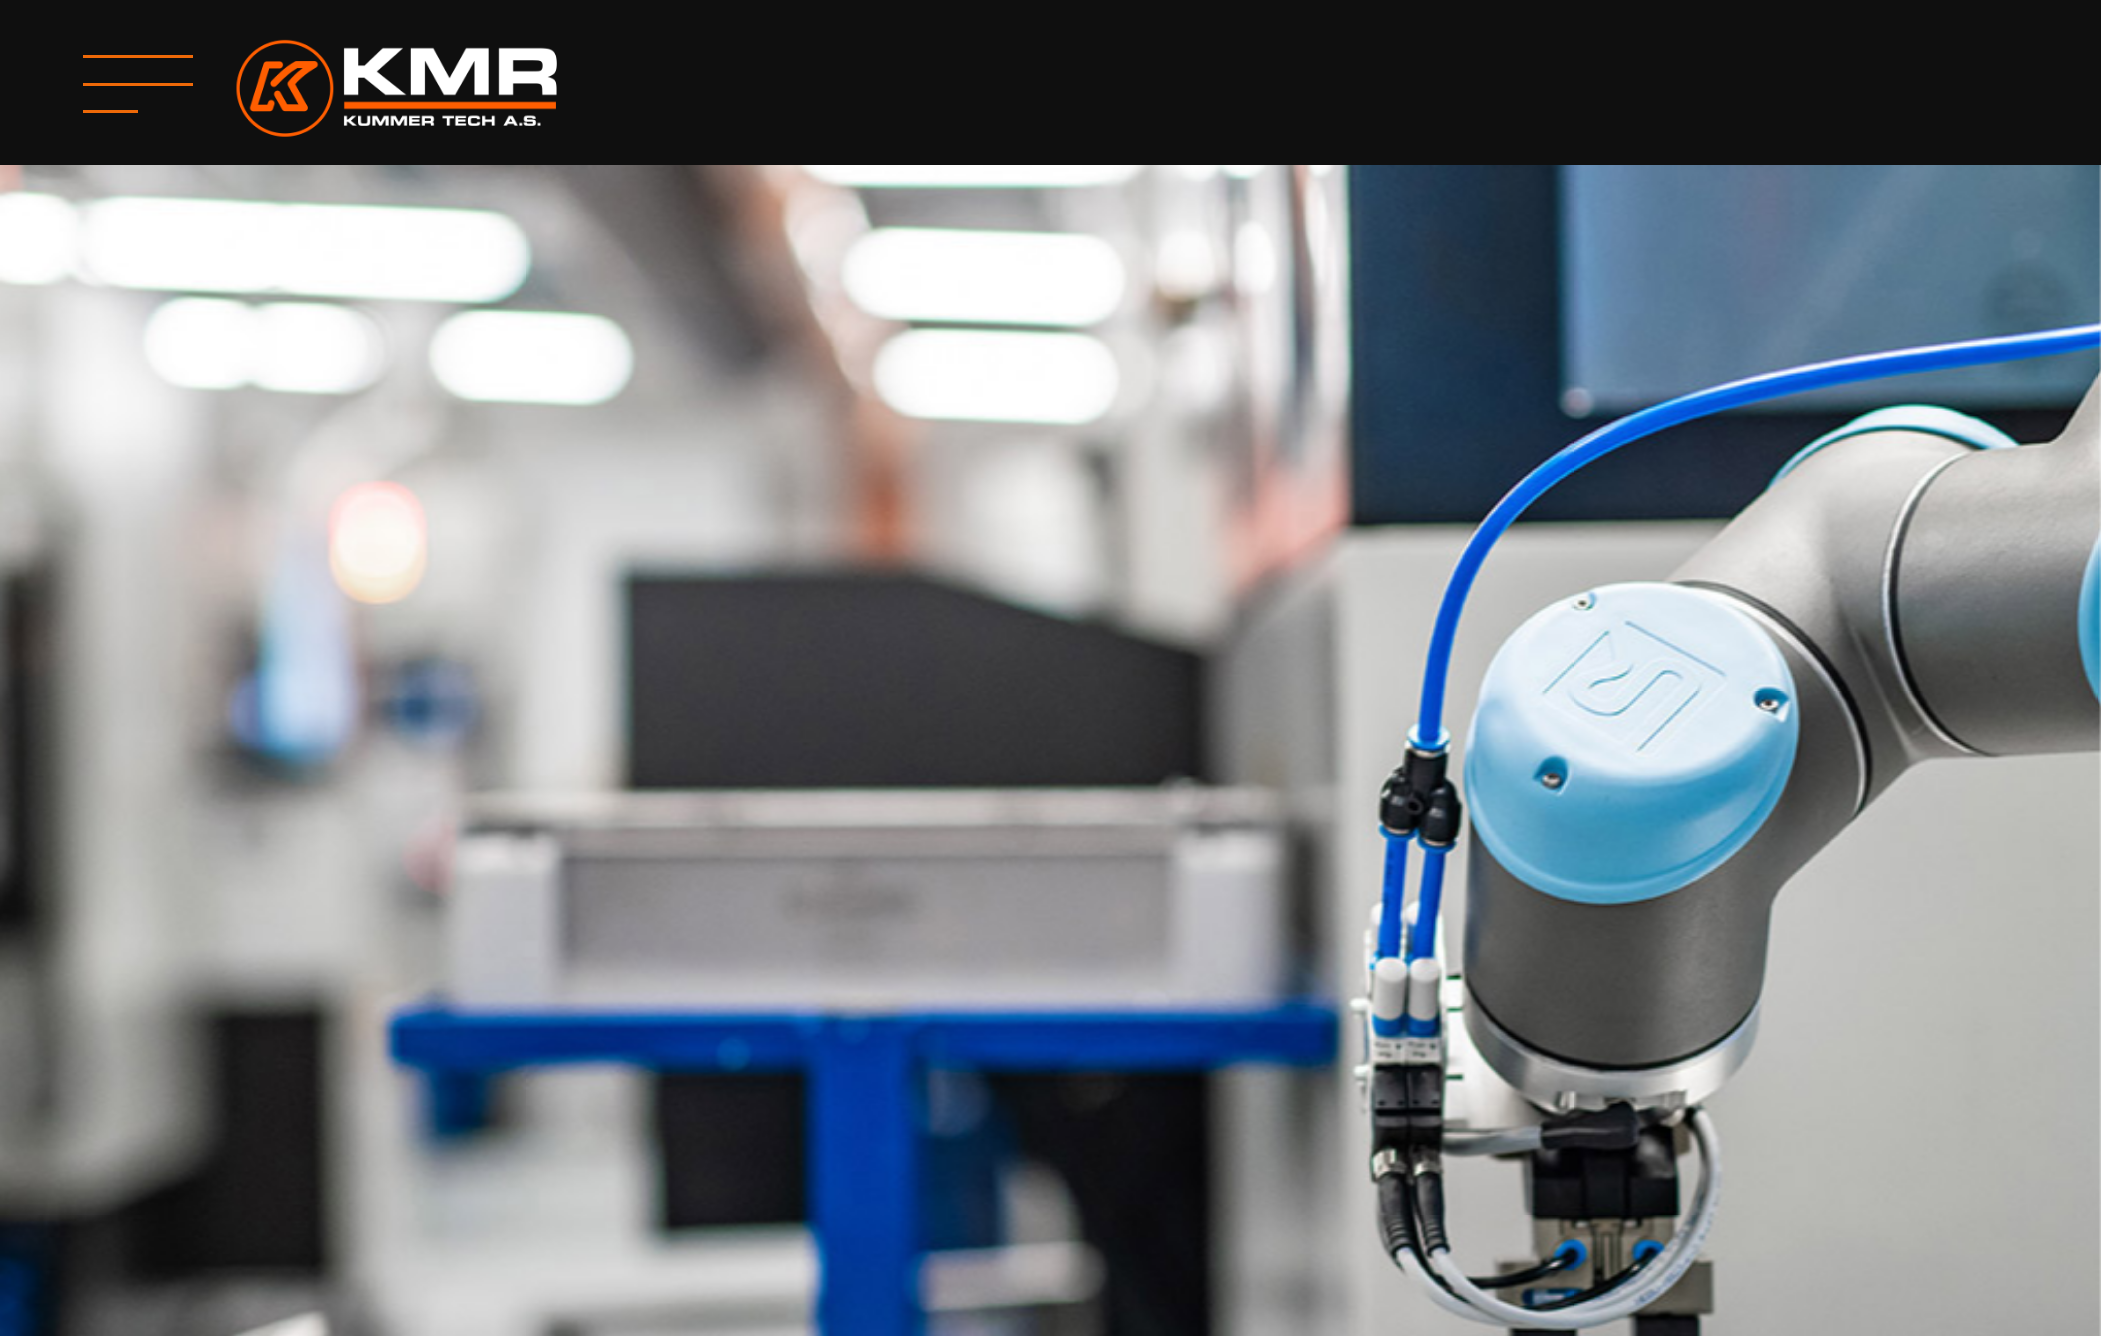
#include <cairo.h>
#include <math.h>
#include <stddef.h>


static void picture(cairo_t *cr, const char *path, double x, double y, double w, double h) {
    cairo_surface_t *image = cairo_image_surface_create_from_png(path);
    cairo_save(cr);
    cairo_set_source_surface(cr, image, x, y);
    cairo_rectangle(cr, x, y, w, h);
    cairo_fill(cr);
    cairo_restore(cr);
    cairo_surface_destroy(image);
}

int main(void) {
    cairo_surface_t *surface = cairo_image_surface_create(CAIRO_FORMAT_RGB24, 2101, 1336);
    cairo_t *cr = cairo_create(surface);
    cairo_font_options_t *options = cairo_font_options_create();
    cairo_font_options_set_hint_metrics(options, CAIRO_HINT_METRICS_OFF);
    cairo_font_options_set_hint_style(options, CAIRO_HINT_STYLE_NONE);
    cairo_set_font_options(cr, options);
    cairo_set_miter_limit(cr, 4);
    cairo_set_source_rgb(cr, 1, 1, 1);
    cairo_paint(cr);
    cairo_set_source_rgb(cr, 0.059, 0.059, 0.059);
    cairo_rectangle(cr, 0, 0, 2101, 165);
    cairo_fill(cr);
    cairo_set_source_rgb(cr, 0.933, 0.412, 0.035);
    cairo_rectangle(cr, 83, 55, 110, 3);
    cairo_fill(cr);
    cairo_rectangle(cr, 83, 83, 110, 3);
    cairo_fill(cr);
    cairo_rectangle(cr, 83, 110, 55, 3);
    cairo_fill(cr);
    picture(cr, "img1.png", 236, 39, 321, 98);
    picture(cr, "img2.png", 0, 165, 2101, 1171);
    cairo_surface_write_to_png(surface, "page.png");
    cairo_font_options_destroy(options);
    cairo_destroy(cr);
    cairo_surface_destroy(surface);
    return 0;
}
